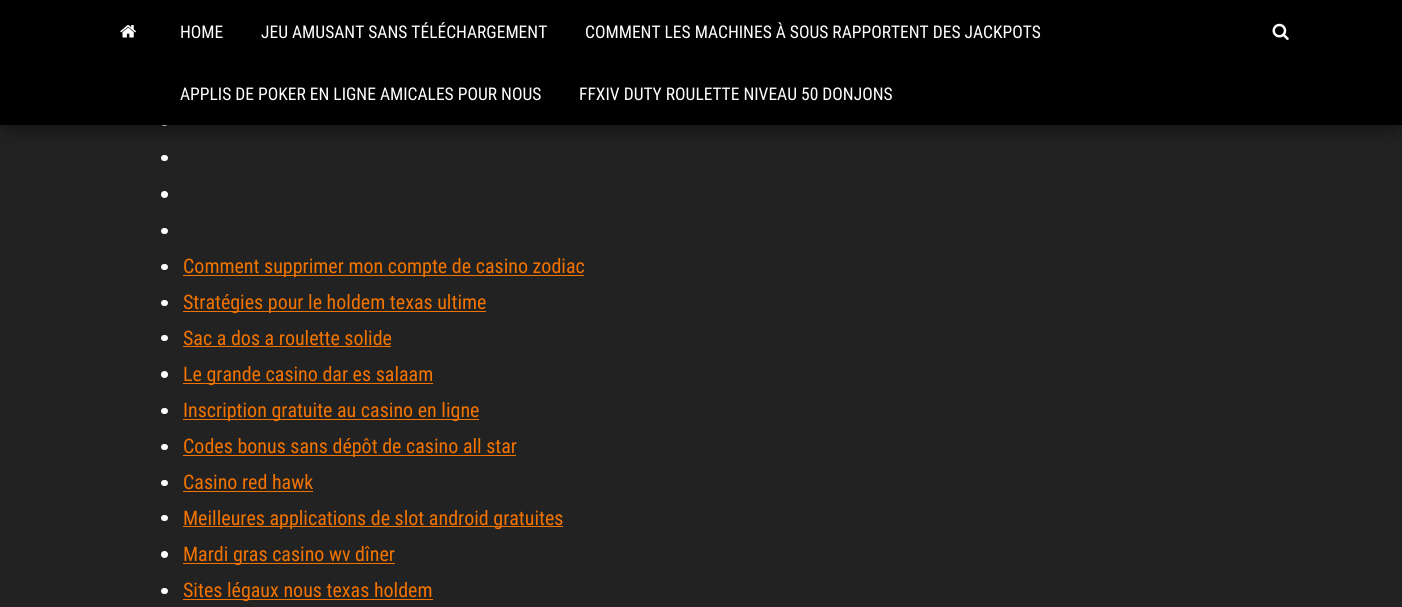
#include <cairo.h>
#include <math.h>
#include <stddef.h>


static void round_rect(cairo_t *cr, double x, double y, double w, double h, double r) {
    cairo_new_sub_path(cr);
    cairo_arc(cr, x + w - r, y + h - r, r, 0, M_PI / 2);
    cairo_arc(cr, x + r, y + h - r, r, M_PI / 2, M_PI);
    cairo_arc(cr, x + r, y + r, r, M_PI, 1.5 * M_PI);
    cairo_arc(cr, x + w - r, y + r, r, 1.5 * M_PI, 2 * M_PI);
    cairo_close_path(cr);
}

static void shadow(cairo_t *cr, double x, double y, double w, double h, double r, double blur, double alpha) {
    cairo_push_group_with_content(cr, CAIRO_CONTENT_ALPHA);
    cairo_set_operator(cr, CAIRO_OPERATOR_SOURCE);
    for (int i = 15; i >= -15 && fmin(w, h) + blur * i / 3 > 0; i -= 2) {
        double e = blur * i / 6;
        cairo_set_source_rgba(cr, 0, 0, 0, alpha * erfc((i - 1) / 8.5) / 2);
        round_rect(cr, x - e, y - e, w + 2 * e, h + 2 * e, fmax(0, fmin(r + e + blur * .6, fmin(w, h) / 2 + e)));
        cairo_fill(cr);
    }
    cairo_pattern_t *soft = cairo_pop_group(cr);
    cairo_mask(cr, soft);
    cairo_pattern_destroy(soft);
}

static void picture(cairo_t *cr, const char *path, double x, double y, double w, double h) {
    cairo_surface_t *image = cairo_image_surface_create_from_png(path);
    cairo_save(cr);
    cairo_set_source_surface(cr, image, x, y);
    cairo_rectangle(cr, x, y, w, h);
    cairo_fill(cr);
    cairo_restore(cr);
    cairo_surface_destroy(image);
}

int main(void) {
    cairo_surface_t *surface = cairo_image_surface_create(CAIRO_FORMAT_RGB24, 1402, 607);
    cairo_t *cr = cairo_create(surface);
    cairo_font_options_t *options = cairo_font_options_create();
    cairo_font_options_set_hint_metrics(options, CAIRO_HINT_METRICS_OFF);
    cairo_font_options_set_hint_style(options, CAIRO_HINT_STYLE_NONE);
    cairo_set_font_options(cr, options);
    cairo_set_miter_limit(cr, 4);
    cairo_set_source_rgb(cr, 0.133, 0.133, 0.133);
    cairo_paint(cr);
    cairo_set_source_rgb(cr, 1, 1, 1);
    round_rect(cr, 161, 120, 7, 6, 3);
    cairo_fill(cr);
    cairo_set_source_rgb(cr, 0, 0, 0);
    shadow(cr, 6, 16, 1390, 113, 0, 6, 0.2);
    cairo_set_source_rgb(cr, 1, 1, 1);
    round_rect(cr, 161, 155, 7, 6, 3);
    cairo_fill(cr);
    cairo_set_source_rgb(cr, 0, 0, 0);
    shadow(cr, 0, 4, 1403, 125, 0, 12.5, 0.12);
    shadow(cr, 15, 28, 1373, 95, 0, 12.5, 0.42);
    cairo_set_source_rgb(cr, 0, 0, 0);
    cairo_rectangle(cr, 0, 0, 1402, 125);
    cairo_fill(cr);
    picture(cr, "img1.png", 120, 25, 16, 13);
    cairo_select_font_face(cr, "Roboto Condensed", CAIRO_FONT_SLANT_NORMAL, CAIRO_FONT_WEIGHT_NORMAL);
    cairo_set_font_size(cr, 17.5);
    cairo_set_source_rgb(cr, 1, 1, 1);
    cairo_move_to(cr, 180, 38);
    cairo_show_text(cr, "HOME");
    cairo_move_to(cr, 261, 38);
    cairo_show_text(cr, "JEU AMUSANT SANS TÉLÉCHARGEMENT");
    cairo_move_to(cr, 585, 38);
    cairo_show_text(cr, "COMMENT LES MACHINES À SOUS RAPPORTENT DES JACKPOTS");
    cairo_move_to(cr, 180, 100);
    cairo_show_text(cr, "APPLIS DE POKER EN LIGNE AMICALES POUR NOUS");
    cairo_move_to(cr, 579, 100);
    cairo_show_text(cr, "FFXIV DUTY ROULETTE NIVEAU 50 DONJONS");
    picture(cr, "img2.png", 1272, 23, 17, 17);
    cairo_arc(cr, 164.5, 194.5, 3.5, 0, 2 * M_PI);
    cairo_fill(cr);
    round_rect(cr, 161, 228, 7, 6, 3);
    cairo_fill(cr);
    round_rect(cr, 161, 264, 7, 6, 3);
    cairo_fill(cr);
    cairo_set_source_rgb(cr, 0.949, 0.451, 0);
    cairo_rectangle(cr, 183, 275, 401, 1);
    cairo_fill(cr);
    cairo_set_font_size(cr, 20);
    cairo_move_to(cr, 183, 273);
    cairo_show_text(cr, "Comment supprimer mon compte de casino zodiac");
    cairo_set_source_rgb(cr, 1, 1, 1);
    round_rect(cr, 161, 300, 7, 6, 3);
    cairo_fill(cr);
    cairo_set_source_rgb(cr, 0.949, 0.451, 0);
    cairo_rectangle(cr, 183, 311, 303, 1);
    cairo_fill(cr);
    cairo_move_to(cr, 183, 309);
    cairo_show_text(cr, "Stratégies pour le holdem texas ultime");
    cairo_set_source_rgb(cr, 1, 1, 1);
    round_rect(cr, 161, 335, 7, 6, 3);
    cairo_fill(cr);
    cairo_set_source_rgb(cr, 0.949, 0.451, 0);
    cairo_move_to(cr, 183, 345);
    cairo_show_text(cr, "Sac a dos a roulette solide");
    cairo_rectangle(cr, 183, 346, 208, 1);
    cairo_fill(cr);
    cairo_set_source_rgb(cr, 1, 1, 1);
    cairo_arc(cr, 164.5, 374.5, 3.5, 0, 2 * M_PI);
    cairo_fill(cr);
    cairo_set_source_rgb(cr, 0.949, 0.451, 0);
    cairo_rectangle(cr, 183, 383, 250, 1);
    cairo_fill(cr);
    cairo_move_to(cr, 183, 381);
    cairo_show_text(cr, "Le grande casino dar es salaam");
    cairo_set_source_rgb(cr, 1, 1, 1);
    round_rect(cr, 161, 408, 7, 6, 3);
    cairo_fill(cr);
    cairo_set_source_rgb(cr, 0.949, 0.451, 0);
    cairo_rectangle(cr, 183, 419, 296, 1);
    cairo_fill(cr);
    cairo_move_to(cr, 183, 417);
    cairo_show_text(cr, "Inscription gratuite au casino en ligne");
    cairo_set_source_rgb(cr, 1, 1, 1);
    round_rect(cr, 161, 444, 7, 6, 3);
    cairo_fill(cr);
    cairo_set_source_rgb(cr, 0.949, 0.451, 0);
    cairo_rectangle(cr, 183, 455, 333, 1);
    cairo_fill(cr);
    cairo_move_to(cr, 183, 453);
    cairo_show_text(cr, "Codes bonus sans dépôt de casino all star");
    cairo_set_source_rgb(cr, 1, 1, 1);
    round_rect(cr, 161, 480, 7, 6, 3);
    cairo_fill(cr);
    cairo_set_source_rgb(cr, 0.949, 0.451, 0);
    cairo_move_to(cr, 183, 489);
    cairo_show_text(cr, "Casino red hawk");
    cairo_rectangle(cr, 183, 491, 130, 1);
    cairo_fill(cr);
    cairo_set_source_rgb(cr, 1, 1, 1);
    round_rect(cr, 161, 515, 7, 6, 3);
    cairo_fill(cr);
    cairo_set_source_rgb(cr, 0.949, 0.451, 0);
    cairo_rectangle(cr, 183, 526, 380, 1);
    cairo_fill(cr);
    cairo_move_to(cr, 183, 525);
    cairo_show_text(cr, "Meilleures applications de slot android gratuites");
    cairo_set_source_rgb(cr, 1, 1, 1);
    cairo_new_path(cr);
    cairo_arc(cr, 164.5, 554.5, 3.5, 0, 2 * M_PI);
    cairo_fill(cr);
    cairo_set_source_rgb(cr, 0.949, 0.451, 0);
    cairo_rectangle(cr, 183, 563, 212, 1);
    cairo_fill(cr);
    cairo_move_to(cr, 183, 561);
    cairo_show_text(cr, "Mardi gras casino wv dîner");
    cairo_set_source_rgb(cr, 1, 1, 1);
    round_rect(cr, 161, 588, 7, 6, 3);
    cairo_fill(cr);
    cairo_set_source_rgb(cr, 0.949, 0.451, 0);
    cairo_rectangle(cr, 183, 599, 250, 1);
    cairo_fill(cr);
    cairo_move_to(cr, 183, 597);
    cairo_show_text(cr, "Sites légaux nous texas holdem");
    cairo_surface_write_to_png(surface, "page.png");
    cairo_font_options_destroy(options);
    cairo_destroy(cr);
    cairo_surface_destroy(surface);
    return 0;
}
